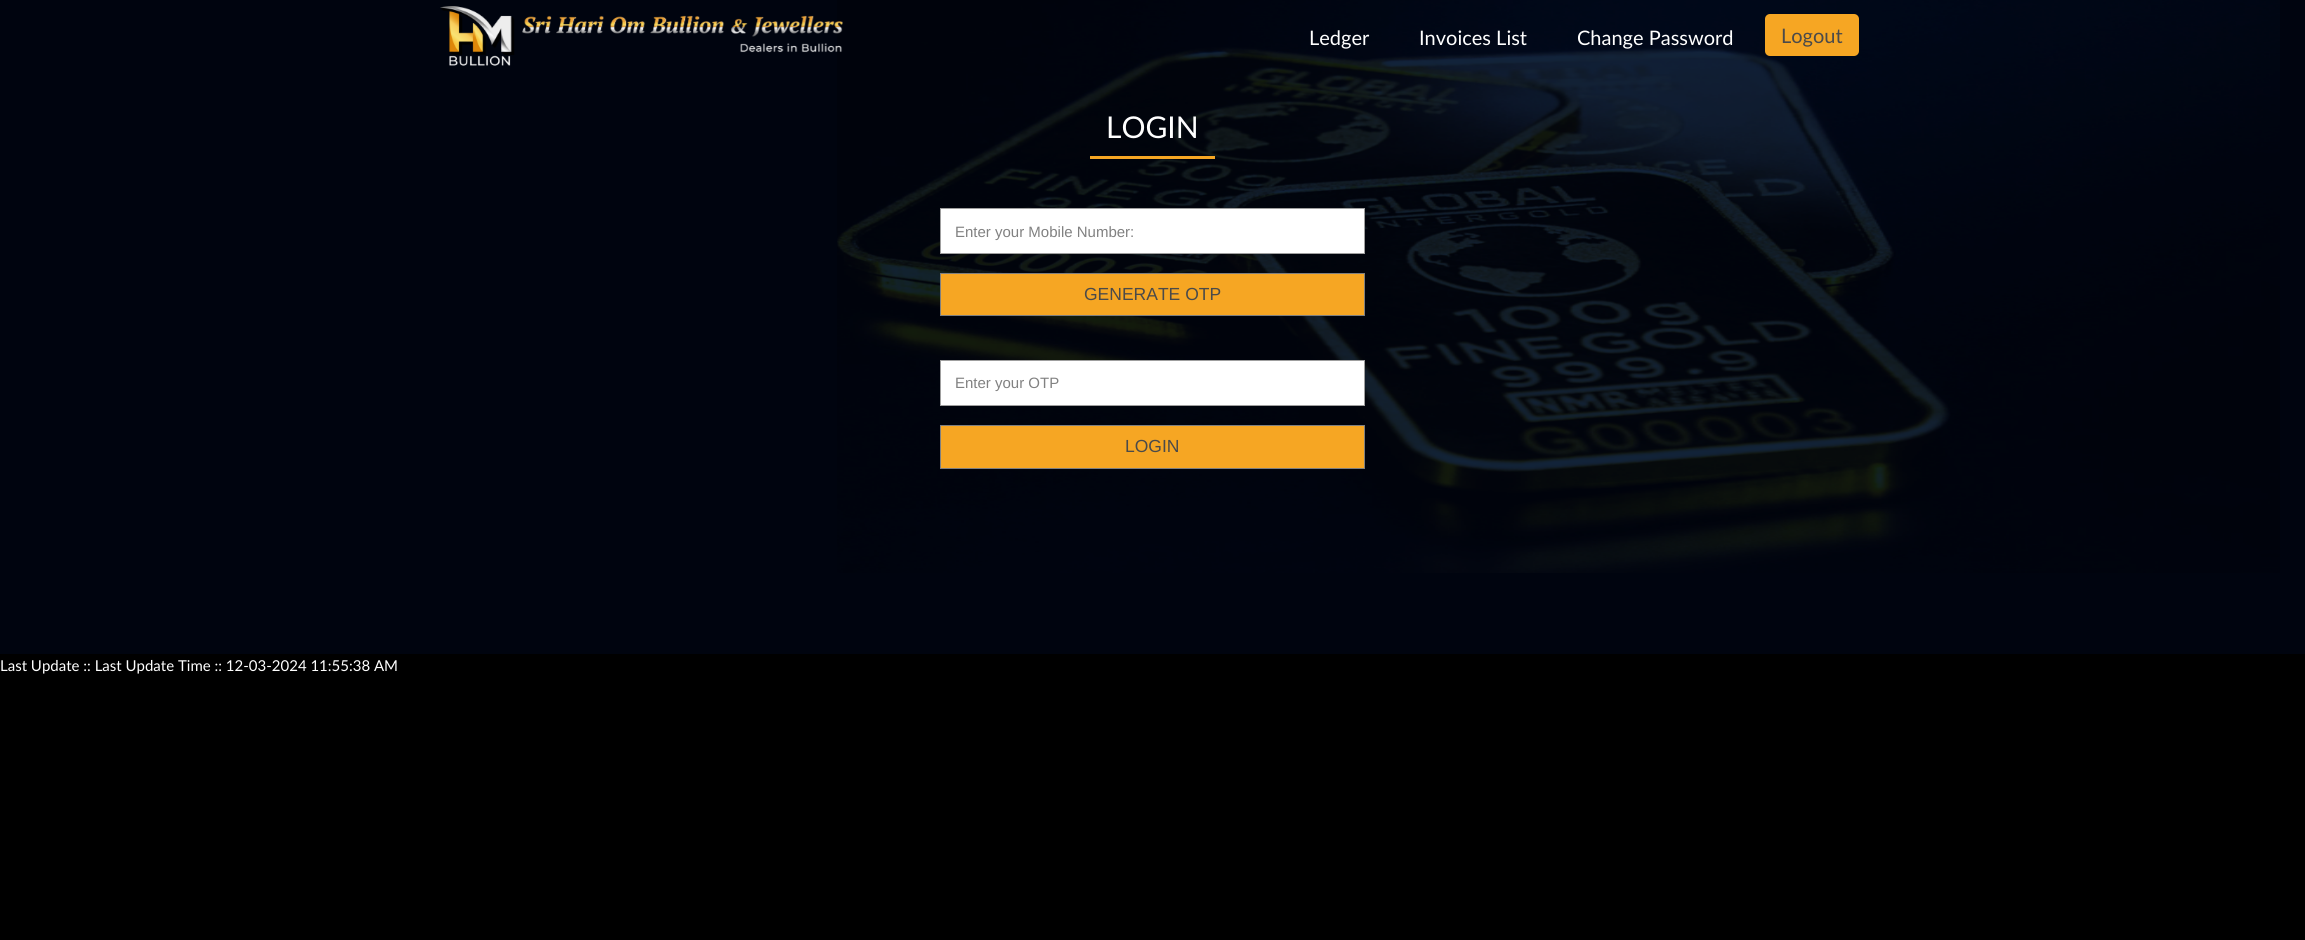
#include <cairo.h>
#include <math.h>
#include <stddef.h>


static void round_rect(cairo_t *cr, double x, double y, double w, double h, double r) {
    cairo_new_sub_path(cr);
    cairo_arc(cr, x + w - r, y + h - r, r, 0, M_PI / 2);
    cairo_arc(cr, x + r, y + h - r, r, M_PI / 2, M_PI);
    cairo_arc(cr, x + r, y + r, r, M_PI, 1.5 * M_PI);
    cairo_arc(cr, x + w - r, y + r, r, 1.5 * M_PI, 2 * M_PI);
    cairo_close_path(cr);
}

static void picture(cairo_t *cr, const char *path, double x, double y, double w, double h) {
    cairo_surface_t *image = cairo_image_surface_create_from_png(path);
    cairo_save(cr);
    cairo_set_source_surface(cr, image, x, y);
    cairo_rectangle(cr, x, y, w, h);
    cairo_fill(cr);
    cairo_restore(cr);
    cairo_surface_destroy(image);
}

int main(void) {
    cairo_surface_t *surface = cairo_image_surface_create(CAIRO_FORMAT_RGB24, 2305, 940);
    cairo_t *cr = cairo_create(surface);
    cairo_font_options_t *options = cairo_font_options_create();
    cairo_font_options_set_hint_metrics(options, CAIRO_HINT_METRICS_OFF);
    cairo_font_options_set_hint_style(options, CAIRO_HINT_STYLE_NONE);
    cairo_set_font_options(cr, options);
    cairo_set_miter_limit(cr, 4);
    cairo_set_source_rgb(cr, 0, 0, 0);
    cairo_paint(cr);
    cairo_set_source_rgb(cr, 0, 0.016, 0.059);
    cairo_rectangle(cr, 0, 0, 2305, 654);
    cairo_fill(cr);
    picture(cr, "img2.png", 837, 0, 1443, 573);
    picture(cr, "img1.png", 440, 6, 403, 60);
    cairo_select_font_face(cr, "Lato", CAIRO_FONT_SLANT_NORMAL, CAIRO_FONT_WEIGHT_NORMAL);
    cairo_set_font_size(cr, 20);
    cairo_set_source_rgb(cr, 1, 1, 1);
    cairo_move_to(cr, 1309, 45);
    cairo_show_text(cr, "Ledger");
    cairo_move_to(cr, 1419, 45);
    cairo_show_text(cr, "Invoices List");
    cairo_move_to(cr, 1577, 45);
    cairo_show_text(cr, "Change Password");
    cairo_set_source_rgb(cr, 0.961, 0.651, 0.137);
    round_rect(cr, 1765, 14, 94, 42, 5);
    cairo_fill(cr);
    cairo_set_source_rgb(cr, 0.29, 0.29, 0.29);
    cairo_move_to(cr, 1781, 43);
    cairo_show_text(cr, "Logout");
    cairo_set_font_size(cr, 30);
    cairo_set_source_rgb(cr, 1, 1, 1);
    cairo_move_to(cr, 1106, 138);
    cairo_show_text(cr, "LOGIN");
    cairo_set_source_rgb(cr, 0.961, 0.651, 0.137);
    cairo_rectangle(cr, 1090, 156, 125, 3);
    cairo_fill(cr);
    cairo_set_source_rgb(cr, 1, 1, 1);
    cairo_rectangle(cr, 940.5, 208.5, 424, 45);
    cairo_fill_preserve(cr);
    cairo_set_source_rgb(cr, 0.624, 0.624, 0.624);
    cairo_set_line_width(cr, 1);
    cairo_stroke(cr);
    cairo_select_font_face(cr, "Liberation Sans", CAIRO_FONT_SLANT_NORMAL, CAIRO_FONT_WEIGHT_NORMAL);
    cairo_set_font_size(cr, 15);
    cairo_set_source_rgb(cr, 0.506, 0.506, 0.506);
    cairo_move_to(cr, 955, 237);
    cairo_show_text(cr, "Enter your Mobile Number:");
    cairo_set_source_rgb(cr, 0.961, 0.651, 0.137);
    cairo_rectangle(cr, 940.5, 273.5, 424, 42);
    cairo_fill_preserve(cr);
    cairo_set_source_rgb(cr, 0.498, 0.498, 0.498);
    cairo_stroke(cr);
    cairo_set_font_size(cr, 17.5);
    cairo_set_source_rgb(cr, 0.29, 0.29, 0.29);
    cairo_move_to(cr, 1084, 300);
    cairo_show_text(cr, "GENERATE OTP");
    cairo_set_source_rgb(cr, 1, 1, 1);
    cairo_rectangle(cr, 940.5, 360.5, 424, 45);
    cairo_fill_preserve(cr);
    cairo_set_source_rgb(cr, 0.624, 0.624, 0.624);
    cairo_stroke(cr);
    cairo_set_font_size(cr, 15);
    cairo_set_source_rgb(cr, 0.506, 0.506, 0.506);
    cairo_move_to(cr, 955, 388);
    cairo_show_text(cr, "Enter your OTP");
    cairo_set_source_rgb(cr, 0.961, 0.651, 0.137);
    cairo_rectangle(cr, 940.5, 425.5, 424, 43);
    cairo_fill_preserve(cr);
    cairo_set_source_rgb(cr, 0.498, 0.498, 0.498);
    cairo_stroke(cr);
    cairo_set_font_size(cr, 17.5);
    cairo_set_source_rgb(cr, 0.29, 0.29, 0.29);
    cairo_move_to(cr, 1125, 452);
    cairo_show_text(cr, "LOGIN");
    cairo_select_font_face(cr, "Lato", CAIRO_FONT_SLANT_NORMAL, CAIRO_FONT_WEIGHT_NORMAL);
    cairo_set_font_size(cr, 15);
    cairo_set_source_rgb(cr, 1, 1, 1);
    cairo_move_to(cr, 0, 671);
    cairo_show_text(cr, "Last Update :: Last Update Time :: 12-03-2024 11:55:38 AM");
    cairo_surface_write_to_png(surface, "page.png");
    cairo_font_options_destroy(options);
    cairo_destroy(cr);
    cairo_surface_destroy(surface);
    return 0;
}
